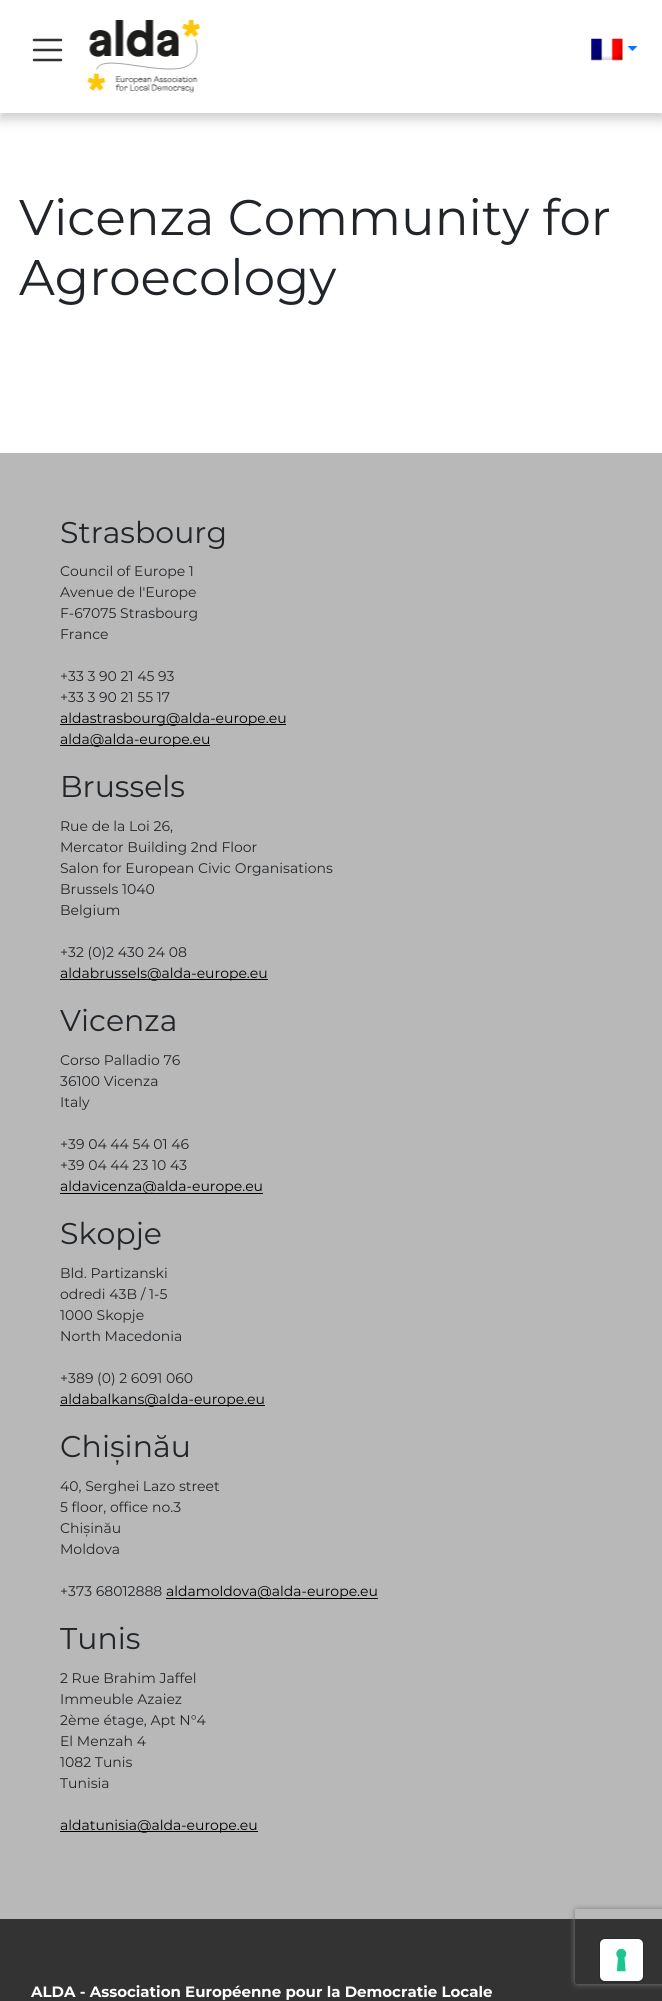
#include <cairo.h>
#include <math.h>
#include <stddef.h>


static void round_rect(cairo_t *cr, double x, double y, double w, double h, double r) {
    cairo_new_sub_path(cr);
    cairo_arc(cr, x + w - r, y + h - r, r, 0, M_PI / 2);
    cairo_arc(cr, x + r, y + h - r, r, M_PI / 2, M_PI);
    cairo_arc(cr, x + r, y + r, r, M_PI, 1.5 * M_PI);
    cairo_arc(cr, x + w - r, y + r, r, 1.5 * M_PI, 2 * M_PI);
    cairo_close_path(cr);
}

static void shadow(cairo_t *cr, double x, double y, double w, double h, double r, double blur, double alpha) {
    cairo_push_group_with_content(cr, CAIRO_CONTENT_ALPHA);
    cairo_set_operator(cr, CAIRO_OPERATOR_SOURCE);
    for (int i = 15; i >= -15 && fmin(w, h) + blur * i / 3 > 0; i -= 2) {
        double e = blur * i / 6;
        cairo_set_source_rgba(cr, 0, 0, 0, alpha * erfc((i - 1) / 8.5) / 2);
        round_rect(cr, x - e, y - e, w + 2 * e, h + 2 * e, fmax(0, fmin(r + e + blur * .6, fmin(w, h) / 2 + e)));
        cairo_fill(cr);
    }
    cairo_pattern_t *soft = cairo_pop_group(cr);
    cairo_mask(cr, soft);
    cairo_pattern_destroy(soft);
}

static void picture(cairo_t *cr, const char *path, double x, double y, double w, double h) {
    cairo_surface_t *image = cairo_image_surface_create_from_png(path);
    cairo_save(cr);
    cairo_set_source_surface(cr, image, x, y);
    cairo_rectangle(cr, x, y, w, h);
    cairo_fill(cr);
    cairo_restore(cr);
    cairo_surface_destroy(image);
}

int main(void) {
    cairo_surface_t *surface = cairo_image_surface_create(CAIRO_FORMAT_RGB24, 662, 2001);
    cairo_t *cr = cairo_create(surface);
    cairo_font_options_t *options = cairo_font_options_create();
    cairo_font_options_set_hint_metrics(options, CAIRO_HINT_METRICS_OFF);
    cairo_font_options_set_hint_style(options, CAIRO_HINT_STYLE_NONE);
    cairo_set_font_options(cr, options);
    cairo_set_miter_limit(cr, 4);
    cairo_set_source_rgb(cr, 1, 1, 1);
    cairo_paint(cr);
    cairo_set_source_rgb(cr, 0, 0, 0);
    shadow(cr, 0, 6, 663, 113, 0, 6, 0.2);
    cairo_set_source_rgb(cr, 1, 1, 1);
    cairo_rectangle(cr, 0, 0, 662, 113);
    cairo_fill(cr);
    cairo_new_path(cr);
    cairo_move_to(cr, 34, 40);
    cairo_line_to(cr, 61, 40);
    cairo_move_to(cr, 34, 50);
    cairo_line_to(cr, 61, 50);
    cairo_move_to(cr, 34, 60);
    cairo_line_to(cr, 61, 60);
    cairo_set_source_rgb(cr, 0.2, 0.2, 0.2);
    cairo_set_line_width(cr, 2.5);
    cairo_set_line_cap(cr, CAIRO_LINE_CAP_ROUND);
    cairo_stroke(cr);
    picture(cr, "img1.png", 87, 20, 114, 73);
    picture(cr, "img2.png", 591, 38, 32, 23);
    cairo_set_source_rgb(cr, 0, 0.482, 1);
    cairo_new_path(cr);
    cairo_move_to(cr, 627.5, 46);
    cairo_line_to(cr, 637.5, 46);
    cairo_line_to(cr, 632.5, 51);
    cairo_close_path(cr);
    cairo_fill(cr);
    cairo_select_font_face(cr, "Montserrat", CAIRO_FONT_SLANT_NORMAL, CAIRO_FONT_WEIGHT_NORMAL);
    cairo_set_font_size(cr, 50);
    cairo_set_source_rgb(cr, 0.129, 0.145, 0.161);
    cairo_move_to(cr, 19, 235);
    cairo_show_text(cr, "Vicenza Community for");
    cairo_move_to(cr, 19, 295);
    cairo_show_text(cr, "Agroecology");
    cairo_set_source_rgb(cr, 0.722, 0.722, 0.722);
    cairo_rectangle(cr, 0, 453, 662, 1466);
    cairo_fill(cr);
    cairo_set_font_size(cr, 30);
    cairo_set_source_rgb(cr, 0.129, 0.145, 0.161);
    cairo_move_to(cr, 60, 543);
    cairo_show_text(cr, "Strasbourg");
    cairo_set_font_size(cr, 14);
    cairo_move_to(cr, 60, 576);
    cairo_show_text(cr, "Council of Europe 1");
    cairo_move_to(cr, 60, 597);
    cairo_show_text(cr, "Avenue de l'Europe");
    cairo_move_to(cr, 60, 618);
    cairo_show_text(cr, "F-67075 Strasbourg");
    cairo_move_to(cr, 60, 639);
    cairo_show_text(cr, "France");
    cairo_move_to(cr, 60, 681);
    cairo_show_text(cr, "+33 3 90 21 45 93");
    cairo_move_to(cr, 60, 702);
    cairo_show_text(cr, "+33 3 90 21 55 17");
    cairo_set_source_rgb(cr, 0, 0, 0);
    cairo_rectangle(cr, 60, 724, 226, 1);
    cairo_fill(cr);
    cairo_move_to(cr, 60, 723);
    cairo_show_text(cr, "aldastrasbourg@alda-europe.eu");
    cairo_rectangle(cr, 60, 745, 150, 1);
    cairo_fill(cr);
    cairo_move_to(cr, 60, 744);
    cairo_show_text(cr, "alda@alda-europe.eu");
    cairo_set_font_size(cr, 30);
    cairo_set_source_rgb(cr, 0.129, 0.145, 0.161);
    cairo_move_to(cr, 60, 797);
    cairo_show_text(cr, "Brussels");
    cairo_set_font_size(cr, 14);
    cairo_move_to(cr, 60, 831);
    cairo_show_text(cr, "Rue de la Loi 26,");
    cairo_move_to(cr, 60, 852);
    cairo_show_text(cr, "Mercator Building 2nd Floor");
    cairo_move_to(cr, 60, 873);
    cairo_show_text(cr, "Salon for European Civic Organisations");
    cairo_move_to(cr, 60, 894);
    cairo_show_text(cr, "Brussels 1040");
    cairo_move_to(cr, 60, 915);
    cairo_show_text(cr, "Belgium");
    cairo_move_to(cr, 60, 957);
    cairo_show_text(cr, "+32 (0)2 430 24 08");
    cairo_set_source_rgb(cr, 0, 0, 0);
    cairo_rectangle(cr, 60, 979, 208, 1);
    cairo_fill(cr);
    cairo_move_to(cr, 60, 978);
    cairo_show_text(cr, "aldabrussels@alda-europe.eu");
    cairo_set_font_size(cr, 30);
    cairo_set_source_rgb(cr, 0.129, 0.145, 0.161);
    cairo_move_to(cr, 60, 1031);
    cairo_show_text(cr, "Vicenza");
    cairo_set_font_size(cr, 14);
    cairo_move_to(cr, 60, 1065);
    cairo_show_text(cr, "Corso Palladio 76");
    cairo_move_to(cr, 60, 1086);
    cairo_show_text(cr, "36100 Vicenza");
    cairo_move_to(cr, 60, 1107);
    cairo_show_text(cr, "Italy");
    cairo_move_to(cr, 60, 1149);
    cairo_show_text(cr, "+39 04 44 54 01 46");
    cairo_move_to(cr, 60, 1170);
    cairo_show_text(cr, "+39 04 44 23 10 43");
    cairo_set_source_rgb(cr, 0, 0, 0);
    cairo_rectangle(cr, 60, 1193, 203, 1);
    cairo_fill(cr);
    cairo_move_to(cr, 60, 1191);
    cairo_show_text(cr, "aldavicenza@alda-europe.eu");
    cairo_set_font_size(cr, 30);
    cairo_set_source_rgb(cr, 0.129, 0.145, 0.161);
    cairo_move_to(cr, 60, 1244);
    cairo_show_text(cr, "Skopje");
    cairo_set_font_size(cr, 14);
    cairo_move_to(cr, 60, 1278);
    cairo_show_text(cr, "Bld. Partizanski");
    cairo_move_to(cr, 60, 1299);
    cairo_show_text(cr, "odredi 43B / 1-5");
    cairo_move_to(cr, 60, 1320);
    cairo_show_text(cr, "1000 Skopje");
    cairo_move_to(cr, 60, 1341);
    cairo_show_text(cr, "North Macedonia");
    cairo_move_to(cr, 60, 1383);
    cairo_show_text(cr, "+389 (0) 2 6091 060");
    cairo_set_source_rgb(cr, 0, 0, 0);
    cairo_rectangle(cr, 60, 1405, 205, 1);
    cairo_fill(cr);
    cairo_move_to(cr, 60, 1404);
    cairo_show_text(cr, "aldabalkans@alda-europe.eu");
    cairo_set_font_size(cr, 30);
    cairo_set_source_rgb(cr, 0.129, 0.145, 0.161);
    cairo_move_to(cr, 60, 1457);
    cairo_show_text(cr, "Chișinău");
    cairo_set_font_size(cr, 14);
    cairo_move_to(cr, 60, 1491);
    cairo_show_text(cr, "40, Serghei Lazo street");
    cairo_move_to(cr, 60, 1512);
    cairo_show_text(cr, "5 floor, office no.3");
    cairo_move_to(cr, 60, 1533);
    cairo_show_text(cr, "Chișinău");
    cairo_move_to(cr, 60, 1554);
    cairo_show_text(cr, "Moldova");
    cairo_move_to(cr, 60, 1596);
    cairo_show_text(cr, "+373 68012888");
    cairo_set_source_rgb(cr, 0, 0, 0);
    cairo_rectangle(cr, 166, 1598, 212, 1);
    cairo_fill(cr);
    cairo_move_to(cr, 166, 1596);
    cairo_show_text(cr, "aldamoldova@alda-europe.eu");
    cairo_set_font_size(cr, 30);
    cairo_set_source_rgb(cr, 0.129, 0.145, 0.161);
    cairo_move_to(cr, 60, 1649);
    cairo_show_text(cr, "Tunis");
    cairo_set_font_size(cr, 14);
    cairo_move_to(cr, 60, 1683);
    cairo_show_text(cr, "2 Rue Brahim Jaffel");
    cairo_move_to(cr, 60, 1704);
    cairo_show_text(cr, "Immeuble Azaiez");
    cairo_move_to(cr, 60, 1725);
    cairo_show_text(cr, "2ème étage, Apt N°4");
    cairo_move_to(cr, 60, 1746);
    cairo_show_text(cr, "El Menzah 4");
    cairo_move_to(cr, 60, 1767);
    cairo_show_text(cr, "1082 Tunis");
    cairo_move_to(cr, 60, 1788);
    cairo_show_text(cr, "Tunisia");
    cairo_set_source_rgb(cr, 0, 0, 0);
    cairo_rectangle(cr, 60, 1831, 198, 1);
    cairo_fill(cr);
    cairo_move_to(cr, 60, 1830);
    cairo_show_text(cr, "aldatunisia@alda-europe.eu");
    cairo_set_source_rgb(cr, 0.2, 0.2, 0.2);
    cairo_rectangle(cr, 0, 1919, 662, 82);
    cairo_fill(cr);
    cairo_save(cr);
    cairo_set_fill_rule(cr, CAIRO_FILL_RULE_EVEN_ODD);
    cairo_new_path(cr);
    cairo_move_to(cr, 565, 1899);
    cairo_line_to(cr, 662, 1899);
    cairo_line_to(cr, 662, 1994);
    cairo_line_to(cr, 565, 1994);
    cairo_close_path(cr);
    cairo_move_to(cr, 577.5, 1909);
    cairo_line_to(cr, 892.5, 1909);
    cairo_curve_to(cr, 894, 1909, 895, 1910, 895, 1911.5);
    cairo_line_to(cr, 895, 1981.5);
    cairo_curve_to(cr, 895, 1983, 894, 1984, 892.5, 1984);
    cairo_line_to(cr, 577.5, 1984);
    cairo_curve_to(cr, 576, 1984, 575, 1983, 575, 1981.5);
    cairo_line_to(cr, 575, 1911.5);
    cairo_curve_to(cr, 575, 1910, 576, 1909, 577.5, 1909);
    cairo_close_path(cr);
    cairo_clip(cr);
    cairo_set_source_rgb(cr, 0.502, 0.502, 0.502);
    shadow(cr, 575, 1909, 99, 75, 2.5, 3, 1);
    cairo_restore(cr);
    round_rect(cr, 599.5, 1938.5, 44, 44, 5.5);
    cairo_set_source_rgb(cr, 0.169, 0.169, 0.169);
    cairo_set_line_width(cr, 1);
    cairo_set_line_cap(cr, CAIRO_LINE_CAP_BUTT);
    cairo_stroke(cr);
    cairo_set_source_rgb(cr, 1, 1, 1);
    round_rect(cr, 600, 1939, 43, 42, 5);
    cairo_fill(cr);
    picture(cr, "img3.png", 616, 1948, 11, 24);
    cairo_select_font_face(cr, "Montserrat", CAIRO_FONT_SLANT_NORMAL, CAIRO_FONT_WEIGHT_BOLD);
    cairo_set_font_size(cr, 15);
    cairo_move_to(cr, 31, 1997);
    cairo_show_text(cr, "ALDA - Association Européenne pour la Democratie Locale");
    cairo_surface_write_to_png(surface, "page.png");
    cairo_font_options_destroy(options);
    cairo_destroy(cr);
    cairo_surface_destroy(surface);
    return 0;
}
